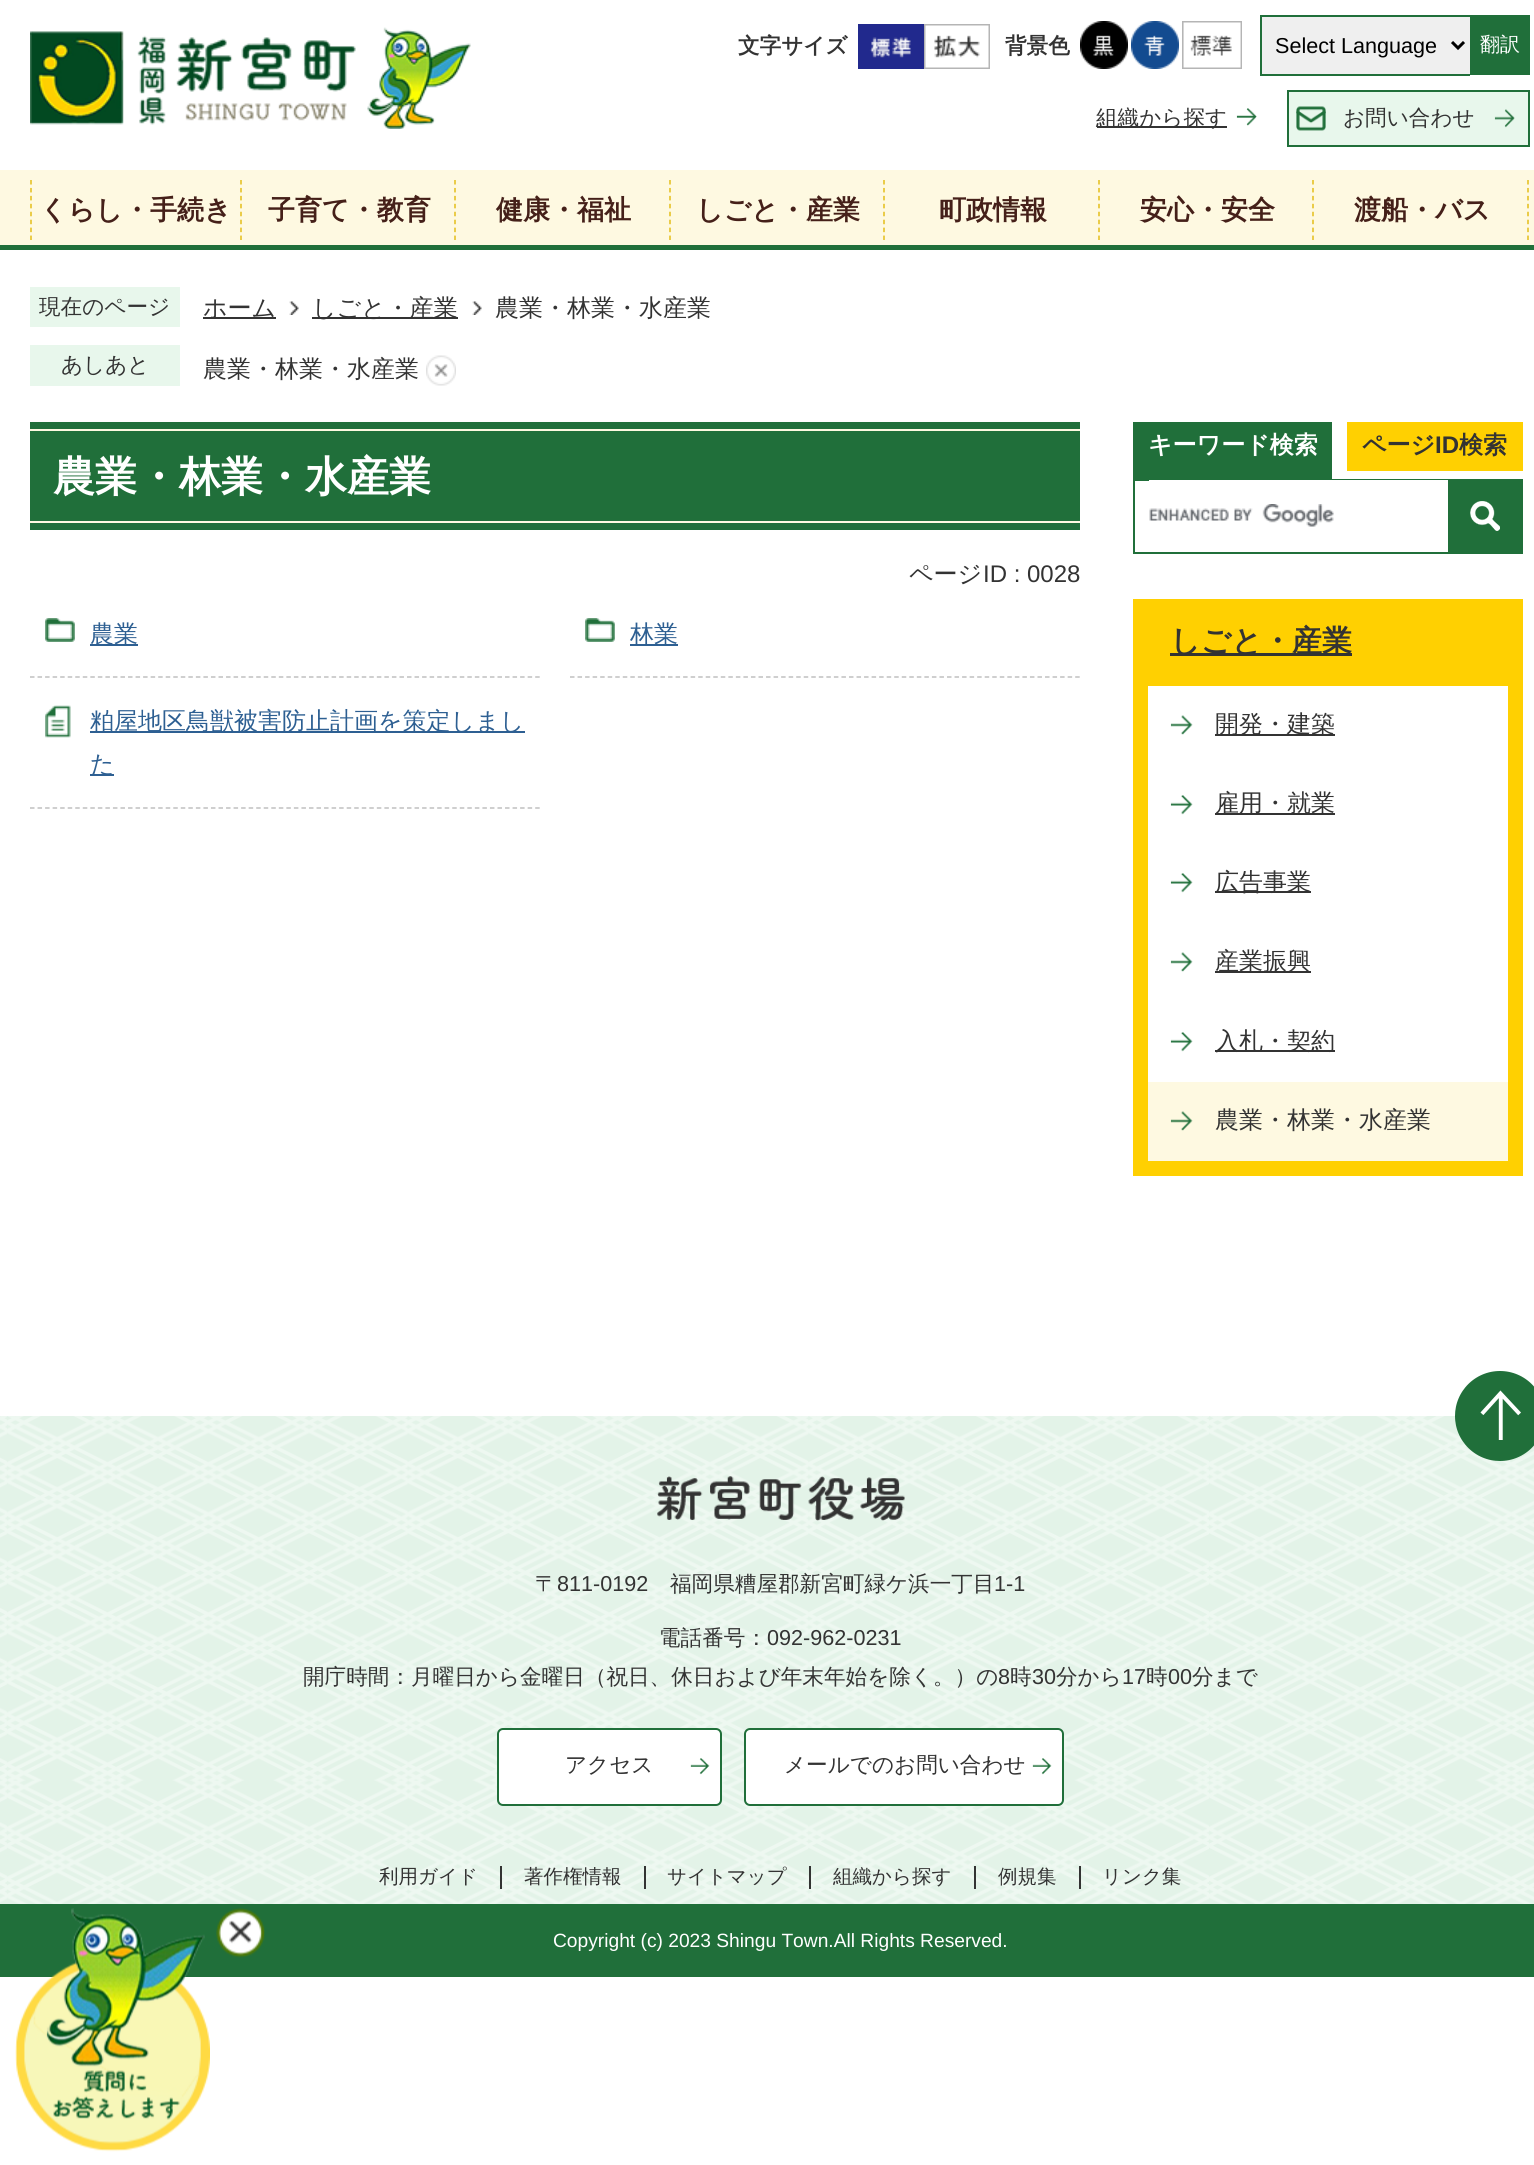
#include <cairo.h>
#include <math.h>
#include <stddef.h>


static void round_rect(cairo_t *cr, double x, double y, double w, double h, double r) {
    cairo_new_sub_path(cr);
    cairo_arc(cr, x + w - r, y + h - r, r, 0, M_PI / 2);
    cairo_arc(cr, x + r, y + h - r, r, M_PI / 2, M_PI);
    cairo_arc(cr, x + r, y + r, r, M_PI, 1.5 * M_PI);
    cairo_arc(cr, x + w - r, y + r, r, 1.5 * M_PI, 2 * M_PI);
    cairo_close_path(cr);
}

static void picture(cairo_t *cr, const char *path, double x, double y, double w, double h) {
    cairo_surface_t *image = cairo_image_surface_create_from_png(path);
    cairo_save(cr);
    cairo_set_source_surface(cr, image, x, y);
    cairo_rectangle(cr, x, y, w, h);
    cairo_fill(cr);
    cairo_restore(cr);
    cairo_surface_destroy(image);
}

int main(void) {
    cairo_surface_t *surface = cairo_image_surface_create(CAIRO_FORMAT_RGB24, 1534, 2165);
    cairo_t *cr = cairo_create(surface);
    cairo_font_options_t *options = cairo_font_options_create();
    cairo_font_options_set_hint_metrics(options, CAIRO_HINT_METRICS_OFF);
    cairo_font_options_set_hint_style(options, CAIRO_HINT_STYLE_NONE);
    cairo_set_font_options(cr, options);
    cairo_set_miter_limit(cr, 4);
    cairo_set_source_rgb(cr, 1, 1, 1);
    cairo_paint(cr);
    picture(cr, "img1.png", 30, 27, 441, 102);
    cairo_select_font_face(cr, "WenQuanYi Zen Hei", CAIRO_FONT_SLANT_NORMAL, CAIRO_FONT_WEIGHT_BOLD);
    cairo_set_font_size(cr, 21.6);
    cairo_set_source_rgb(cr, 0.2, 0.2, 0.2);
    cairo_move_to(cr, 738, 53);
    cairo_show_text(cr, "文字サイズ");
    picture(cr, "img2.png", 858, 24, 66, 45);
    picture(cr, "img3.png", 924, 24, 66, 45);
    cairo_move_to(cr, 1005, 53);
    cairo_show_text(cr, "背景色");
    picture(cr, "img4.png", 1080, 21, 48, 48);
    picture(cr, "img5.png", 1131, 21, 48, 48);
    picture(cr, "img6.png", 1182, 21, 60, 48);
    cairo_set_source_rgb(cr, 0.937, 0.937, 0.937);
    cairo_rectangle(cr, 1262, 17, 208, 57);
    cairo_fill(cr);
    cairo_set_source_rgb(cr, 0.125, 0.435, 0.227);
    cairo_rectangle(cr, 1260, 15, 210, 2);
    cairo_fill(cr);
    cairo_rectangle(cr, 1260, 74, 210, 2);
    cairo_fill(cr);
    cairo_rectangle(cr, 1260, 15, 2, 60);
    cairo_fill(cr);
    cairo_new_path(cr);
    cairo_move_to(cr, 1452, 42);
    cairo_line_to(cr, 1458, 48);
    cairo_line_to(cr, 1464, 42);
    cairo_set_source_rgb(cr, 0, 0, 0);
    cairo_set_line_width(cr, 3);
    cairo_stroke(cr);
    cairo_select_font_face(cr, "Liberation Sans", CAIRO_FONT_SLANT_NORMAL, CAIRO_FONT_WEIGHT_NORMAL);
    cairo_move_to(cr, 1275, 53);
    cairo_show_text(cr, "Select Language");
    cairo_set_source_rgb(cr, 0.125, 0.435, 0.227);
    cairo_rectangle(cr, 1470, 15, 60, 60);
    cairo_fill(cr);
    cairo_select_font_face(cr, "WenQuanYi Zen Hei Medium", CAIRO_FONT_SLANT_NORMAL, CAIRO_FONT_WEIGHT_NORMAL);
    cairo_set_font_size(cr, 20);
    cairo_set_source_rgb(cr, 1, 1, 1);
    cairo_move_to(cr, 1480, 51);
    cairo_show_text(cr, "翻訳");
    cairo_set_source_rgb(cr, 0.2, 0.2, 0.2);
    cairo_rectangle(cr, 1097, 126, 130, 2);
    cairo_fill(cr);
    cairo_set_font_size(cr, 21.6);
    cairo_move_to(cr, 1096, 125);
    cairo_show_text(cr, "組織から探す");
    picture(cr, "img7.png", 1236, 108, 21, 18);
    cairo_set_source_rgb(cr, 0.91, 0.965, 0.925);
    cairo_rectangle(cr, 1289, 92, 239, 53);
    cairo_fill(cr);
    picture(cr, "img8.png", 1296, 106, 219, 25);
    cairo_rectangle(cr, 1288, 91, 241, 55);
    cairo_set_source_rgb(cr, 0.125, 0.435, 0.227);
    cairo_set_line_width(cr, 2);
    cairo_stroke(cr);
    cairo_set_source_rgb(cr, 0.2, 0.2, 0.2);
    cairo_move_to(cr, 1343, 125);
    cairo_show_text(cr, "お問い合わせ");
    cairo_set_source_rgb(cr, 0.996, 0.973, 0.882);
    cairo_rectangle(cr, 0, 170, 1534, 75);
    cairo_fill(cr);
    cairo_set_source_rgb(cr, 0.125, 0.435, 0.227);
    cairo_rectangle(cr, 0, 245, 1534, 5);
    cairo_fill(cr);
    cairo_new_path(cr);
    cairo_move_to(cr, 241, 180);
    cairo_line_to(cr, 241, 240);
    cairo_set_source_rgb(cr, 0.89, 0.741, 0.09);
    cairo_set_line_width(cr, 1.5);
    cairo_set_dash(cr, (double[]){4.5, 3.44}, 2, 0);
    cairo_stroke(cr);
    cairo_new_path(cr);
    cairo_move_to(cr, 31, 180);
    cairo_line_to(cr, 31, 240);
    cairo_stroke(cr);
    cairo_select_font_face(cr, "WenQuanYi Zen Hei", CAIRO_FONT_SLANT_NORMAL, CAIRO_FONT_WEIGHT_BOLD);
    cairo_set_font_size(cr, 27);
    cairo_set_source_rgb(cr, 0.271, 0.125, 0.098);
    cairo_move_to(cr, 40, 219);
    cairo_show_text(cr, "くらし・手続き");
    cairo_new_path(cr);
    cairo_move_to(cr, 455, 180);
    cairo_line_to(cr, 455, 240);
    cairo_set_source_rgb(cr, 0.89, 0.741, 0.09);
    cairo_stroke(cr);
    cairo_set_source_rgb(cr, 0.271, 0.125, 0.098);
    cairo_move_to(cr, 268, 219);
    cairo_show_text(cr, "子育て・教育");
    cairo_new_path(cr);
    cairo_move_to(cr, 670, 180);
    cairo_line_to(cr, 670, 240);
    cairo_set_source_rgb(cr, 0.89, 0.741, 0.09);
    cairo_stroke(cr);
    cairo_set_source_rgb(cr, 0.271, 0.125, 0.098);
    cairo_move_to(cr, 496, 219);
    cairo_show_text(cr, "健康・福祉");
    cairo_new_path(cr);
    cairo_move_to(cr, 884, 180);
    cairo_line_to(cr, 884, 240);
    cairo_set_source_rgb(cr, 0.89, 0.741, 0.09);
    cairo_stroke(cr);
    cairo_set_source_rgb(cr, 0.271, 0.125, 0.098);
    cairo_move_to(cr, 696, 219);
    cairo_show_text(cr, "しごと・産業");
    cairo_new_path(cr);
    cairo_move_to(cr, 1099, 180);
    cairo_line_to(cr, 1099, 240);
    cairo_set_source_rgb(cr, 0.89, 0.741, 0.09);
    cairo_stroke(cr);
    cairo_set_source_rgb(cr, 0.271, 0.125, 0.098);
    cairo_move_to(cr, 939, 219);
    cairo_show_text(cr, "町政情報");
    cairo_new_path(cr);
    cairo_move_to(cr, 1313, 180);
    cairo_line_to(cr, 1313, 240);
    cairo_set_source_rgb(cr, 0.89, 0.741, 0.09);
    cairo_stroke(cr);
    cairo_set_source_rgb(cr, 0.271, 0.125, 0.098);
    cairo_move_to(cr, 1140, 219);
    cairo_show_text(cr, "安心・安全");
    cairo_new_path(cr);
    cairo_move_to(cr, 1528, 180);
    cairo_line_to(cr, 1528, 240);
    cairo_set_source_rgb(cr, 0.89, 0.741, 0.09);
    cairo_stroke(cr);
    cairo_set_source_rgb(cr, 0.271, 0.125, 0.098);
    cairo_move_to(cr, 1354, 219);
    cairo_show_text(cr, "渡船・バス");
    cairo_set_source_rgb(cr, 0.91, 0.965, 0.925);
    cairo_rectangle(cr, 30, 287, 150, 40);
    cairo_fill(cr);
    cairo_select_font_face(cr, "WenQuanYi Zen Hei Medium", CAIRO_FONT_SLANT_NORMAL, CAIRO_FONT_WEIGHT_NORMAL);
    cairo_set_font_size(cr, 21.6);
    cairo_set_source_rgb(cr, 0.2, 0.2, 0.2);
    cairo_move_to(cr, 39, 314);
    cairo_show_text(cr, "現在のページ");
    cairo_rectangle(cr, 203, 317, 73, 2);
    cairo_fill(cr);
    cairo_set_font_size(cr, 24);
    cairo_move_to(cr, 203, 316);
    cairo_show_text(cr, "ホーム");
    picture(cr, "img9.png", 289, 301, 10, 14);
    cairo_rectangle(cr, 312, 317, 146, 2);
    cairo_fill(cr);
    cairo_move_to(cr, 312, 316);
    cairo_show_text(cr, "しごと・産業");
    picture(cr, "img10.png", 472, 301, 10, 14);
    cairo_move_to(cr, 495, 316);
    cairo_show_text(cr, "農業・林業・水産業");
    cairo_set_source_rgb(cr, 0.91, 0.965, 0.925);
    cairo_rectangle(cr, 30, 345, 150, 41);
    cairo_fill(cr);
    cairo_set_font_size(cr, 21.6);
    cairo_set_source_rgb(cr, 0.2, 0.2, 0.2);
    cairo_move_to(cr, 61, 372);
    cairo_show_text(cr, "あしあと");
    cairo_set_font_size(cr, 24);
    cairo_move_to(cr, 203, 377);
    cairo_show_text(cr, "農業・林業・水産業");
    picture(cr, "img11.png", 426, 355, 30, 31);
    cairo_set_source_rgb(cr, 0.125, 0.435, 0.227);
    cairo_rectangle(cr, 30, 422, 1050, 108);
    cairo_fill(cr);
    cairo_set_source_rgb(cr, 0.996, 0.973, 0.882);
    cairo_rectangle(cr, 30, 429, 1050, 2);
    cairo_fill(cr);
    cairo_rectangle(cr, 30, 521, 1050, 2);
    cairo_fill(cr);
    cairo_select_font_face(cr, "WenQuanYi Zen Hei", CAIRO_FONT_SLANT_NORMAL, CAIRO_FONT_WEIGHT_BOLD);
    cairo_set_font_size(cr, 42);
    cairo_set_source_rgb(cr, 1, 1, 1);
    cairo_move_to(cr, 53, 491);
    cairo_show_text(cr, "農業・林業・水産業");
    cairo_select_font_face(cr, "WenQuanYi Zen Hei Medium", CAIRO_FONT_SLANT_NORMAL, CAIRO_FONT_WEIGHT_NORMAL);
    cairo_set_font_size(cr, 24);
    cairo_set_source_rgb(cr, 0.2, 0.2, 0.2);
    cairo_move_to(cr, 909, 582);
    cairo_show_text(cr, "ページ");
    cairo_select_font_face(cr, "Liberation Sans", CAIRO_FONT_SLANT_NORMAL, CAIRO_FONT_WEIGHT_NORMAL);
    cairo_move_to(cr, 983, 582);
    cairo_show_text(cr, "ID : 0028");
    picture(cr, "img12.png", 45, 618, 30, 24);
    cairo_new_path(cr);
    cairo_move_to(cr, 30, 677);
    cairo_line_to(cr, 540, 677);
    cairo_set_source_rgb(cr, 0.749, 0.749, 0.749);
    cairo_set_dash(cr, (double[]){4.5, 3.04}, 2, 0);
    cairo_stroke(cr);
    cairo_set_source_rgb(cr, 0.176, 0.373, 0.573);
    cairo_rectangle(cr, 90, 644, 48, 2);
    cairo_fill(cr);
    cairo_select_font_face(cr, "WenQuanYi Zen Hei Medium", CAIRO_FONT_SLANT_NORMAL, CAIRO_FONT_WEIGHT_NORMAL);
    cairo_move_to(cr, 90, 642);
    cairo_show_text(cr, "農業");
    picture(cr, "img13.png", 585, 618, 30, 24);
    cairo_new_path(cr);
    cairo_move_to(cr, 570, 677);
    cairo_line_to(cr, 1080, 677);
    cairo_set_source_rgb(cr, 0.749, 0.749, 0.749);
    cairo_stroke(cr);
    cairo_set_source_rgb(cr, 0.176, 0.373, 0.573);
    cairo_rectangle(cr, 630, 644, 48, 2);
    cairo_fill(cr);
    cairo_move_to(cr, 630, 642);
    cairo_show_text(cr, "林業");
    picture(cr, "img14.png", 45, 705, 26, 33);
    cairo_new_path(cr);
    cairo_move_to(cr, 30, 808);
    cairo_line_to(cr, 540, 808);
    cairo_set_source_rgb(cr, 0.749, 0.749, 0.749);
    cairo_stroke(cr);
    cairo_set_source_rgb(cr, 0.176, 0.373, 0.573);
    cairo_rectangle(cr, 90, 731, 435, 2);
    cairo_fill(cr);
    cairo_move_to(cr, 90, 729);
    cairo_show_text(cr, "粕屋地区鳥獣被害防止計画を策定しまし");
    cairo_rectangle(cr, 90, 774, 24, 2);
    cairo_fill(cr);
    cairo_move_to(cr, 90, 772);
    cairo_show_text(cr, "た");
    cairo_set_source_rgb(cr, 0.125, 0.435, 0.227);
    cairo_rectangle(cr, 1133, 422, 199, 57);
    cairo_fill(cr);
    cairo_select_font_face(cr, "WenQuanYi Zen Hei", CAIRO_FONT_SLANT_NORMAL, CAIRO_FONT_WEIGHT_BOLD);
    cairo_set_source_rgb(cr, 1, 1, 1);
    cairo_move_to(cr, 1148, 453);
    cairo_show_text(cr, "キーワード検索");
    cairo_set_source_rgb(cr, 1, 0.816, 0.004);
    cairo_rectangle(cr, 1347, 422, 176, 49);
    cairo_fill(cr);
    cairo_set_source_rgb(cr, 0.2, 0.2, 0.2);
    cairo_move_to(cr, 1362, 453);
    cairo_show_text(cr, "ページ");
    cairo_select_font_face(cr, "Liberation Sans", CAIRO_FONT_SLANT_NORMAL, CAIRO_FONT_WEIGHT_BOLD);
    cairo_move_to(cr, 1435, 453);
    cairo_show_text(cr, "ID");
    cairo_select_font_face(cr, "WenQuanYi Zen Hei", CAIRO_FONT_SLANT_NORMAL, CAIRO_FONT_WEIGHT_BOLD);
    cairo_move_to(cr, 1459, 453);
    cairo_show_text(cr, "検索");
    cairo_set_source_rgb(cr, 0.125, 0.435, 0.227);
    cairo_rectangle(cr, 1133, 479, 315, 2);
    cairo_fill(cr);
    cairo_rectangle(cr, 1133, 552, 315, 2);
    cairo_fill(cr);
    cairo_rectangle(cr, 1133, 479, 2, 75);
    cairo_fill(cr);
    cairo_set_source_rgb(cr, 1, 1, 1);
    cairo_rectangle(cr, 1149, 480, 299, 1);
    cairo_fill(cr);
    picture(cr, "img15.png", 1149, 504, 185, 23);
    cairo_set_source_rgb(cr, 0.125, 0.435, 0.227);
    cairo_rectangle(cr, 1448, 479, 75, 75);
    cairo_fill(cr);
    picture(cr, "img16.png", 1470, 501, 30, 30);
    cairo_set_source_rgb(cr, 1, 0.816, 0.004);
    cairo_rectangle(cr, 1133, 599, 390, 577);
    cairo_fill(cr);
    cairo_set_source_rgb(cr, 0.2, 0.2, 0.2);
    cairo_rectangle(cr, 1170, 653, 182, 3);
    cairo_fill(cr);
    cairo_set_font_size(cr, 30);
    cairo_move_to(cr, 1170, 651);
    cairo_show_text(cr, "しごと・産業");
    cairo_set_source_rgb(cr, 1, 1, 1);
    cairo_rectangle(cr, 1148, 686, 360, 396);
    cairo_fill(cr);
    picture(cr, "img17.png", 1170, 715, 23, 20);
    cairo_set_source_rgb(cr, 0.2, 0.2, 0.2);
    cairo_rectangle(cr, 1215, 734, 120, 2);
    cairo_fill(cr);
    cairo_select_font_face(cr, "WenQuanYi Zen Hei Medium", CAIRO_FONT_SLANT_NORMAL, CAIRO_FONT_WEIGHT_NORMAL);
    cairo_set_font_size(cr, 24);
    cairo_move_to(cr, 1215, 732);
    cairo_show_text(cr, "開発・建築");
    picture(cr, "img18.png", 1170, 795, 23, 20);
    cairo_rectangle(cr, 1215, 813, 120, 2);
    cairo_fill(cr);
    cairo_move_to(cr, 1215, 811);
    cairo_show_text(cr, "雇用・就業");
    picture(cr, "img18.png", 1170, 873, 23, 20);
    cairo_rectangle(cr, 1215, 891, 96, 2);
    cairo_fill(cr);
    cairo_move_to(cr, 1215, 890);
    cairo_show_text(cr, "広告事業");
    picture(cr, "img17.png", 1170, 952, 23, 20);
    cairo_rectangle(cr, 1215, 971, 96, 2);
    cairo_fill(cr);
    cairo_move_to(cr, 1215, 969);
    cairo_show_text(cr, "産業振興");
    picture(cr, "img18.png", 1170, 1032, 23, 20);
    cairo_rectangle(cr, 1215, 1050, 120, 2);
    cairo_fill(cr);
    cairo_move_to(cr, 1215, 1049);
    cairo_show_text(cr, "入札・契約");
    cairo_set_source_rgb(cr, 0.996, 0.973, 0.882);
    cairo_rectangle(cr, 1148, 1082, 360, 79);
    cairo_fill(cr);
    picture(cr, "img19.png", 1170, 1111, 23, 20);
    cairo_set_source_rgb(cr, 0.2, 0.2, 0.2);
    cairo_move_to(cr, 1215, 1128);
    cairo_show_text(cr, "農業・林業・水産業");
    picture(cr, "img20.png", 0, 1416, 1534, 488);
    picture(cr, "img21.png", 1455, 1371, 79, 90);
    picture(cr, "img22.png", 657, 1476, 248, 45);
    cairo_set_font_size(cr, 21.6);
    cairo_move_to(cr, 535, 1591);
    cairo_show_text(cr, "〒");
    cairo_select_font_face(cr, "Liberation Sans", CAIRO_FONT_SLANT_NORMAL, CAIRO_FONT_WEIGHT_NORMAL);
    cairo_move_to(cr, 557, 1591);
    cairo_show_text(cr, "811-0192");
    cairo_select_font_face(cr, "WenQuanYi Zen Hei Medium", CAIRO_FONT_SLANT_NORMAL, CAIRO_FONT_WEIGHT_NORMAL);
    cairo_move_to(cr, 670, 1591);
    cairo_show_text(cr, "福岡県糟屋郡新宮町緑ケ浜一丁目");
    cairo_select_font_face(cr, "Liberation Sans", CAIRO_FONT_SLANT_NORMAL, CAIRO_FONT_WEIGHT_NORMAL);
    cairo_move_to(cr, 994, 1591);
    cairo_show_text(cr, "1-1");
    cairo_select_font_face(cr, "WenQuanYi Zen Hei Medium", CAIRO_FONT_SLANT_NORMAL, CAIRO_FONT_WEIGHT_NORMAL);
    cairo_move_to(cr, 659, 1645);
    cairo_show_text(cr, "電話番号：");
    cairo_select_font_face(cr, "Liberation Sans", CAIRO_FONT_SLANT_NORMAL, CAIRO_FONT_WEIGHT_NORMAL);
    cairo_move_to(cr, 767, 1645);
    cairo_show_text(cr, "092-962-0231");
    cairo_select_font_face(cr, "WenQuanYi Zen Hei Medium", CAIRO_FONT_SLANT_NORMAL, CAIRO_FONT_WEIGHT_NORMAL);
    cairo_move_to(cr, 303, 1684);
    cairo_show_text(cr, "開庁時間：月曜日から金曜日（祝日、休日および年末年始を除く。）の");
    cairo_select_font_face(cr, "Liberation Sans", CAIRO_FONT_SLANT_NORMAL, CAIRO_FONT_WEIGHT_NORMAL);
    cairo_move_to(cr, 998, 1684);
    cairo_show_text(cr, "8");
    cairo_select_font_face(cr, "WenQuanYi Zen Hei Medium", CAIRO_FONT_SLANT_NORMAL, CAIRO_FONT_WEIGHT_NORMAL);
    cairo_move_to(cr, 1010, 1684);
    cairo_show_text(cr, "時");
    cairo_select_font_face(cr, "Liberation Sans", CAIRO_FONT_SLANT_NORMAL, CAIRO_FONT_WEIGHT_NORMAL);
    cairo_move_to(cr, 1032, 1684);
    cairo_show_text(cr, "30");
    cairo_select_font_face(cr, "WenQuanYi Zen Hei Medium", CAIRO_FONT_SLANT_NORMAL, CAIRO_FONT_WEIGHT_NORMAL);
    cairo_move_to(cr, 1056, 1684);
    cairo_show_text(cr, "分から");
    cairo_select_font_face(cr, "Liberation Sans", CAIRO_FONT_SLANT_NORMAL, CAIRO_FONT_WEIGHT_NORMAL);
    cairo_move_to(cr, 1122, 1684);
    cairo_show_text(cr, "17");
    cairo_select_font_face(cr, "WenQuanYi Zen Hei Medium", CAIRO_FONT_SLANT_NORMAL, CAIRO_FONT_WEIGHT_NORMAL);
    cairo_move_to(cr, 1146, 1684);
    cairo_show_text(cr, "時");
    cairo_select_font_face(cr, "Liberation Sans", CAIRO_FONT_SLANT_NORMAL, CAIRO_FONT_WEIGHT_NORMAL);
    cairo_move_to(cr, 1168, 1684);
    cairo_show_text(cr, "00");
    cairo_select_font_face(cr, "WenQuanYi Zen Hei Medium", CAIRO_FONT_SLANT_NORMAL, CAIRO_FONT_WEIGHT_NORMAL);
    cairo_move_to(cr, 1192, 1684);
    cairo_show_text(cr, "分まで");
    cairo_set_source_rgb(cr, 1, 1, 1);
    round_rect(cr, 497, 1728, 225, 78, 6);
    cairo_fill(cr);
    picture(cr, "img23.png", 690, 1758, 20, 17);
    round_rect(cr, 498, 1729, 223, 76, 5);
    cairo_set_source_rgb(cr, 0.125, 0.435, 0.227);
    cairo_set_line_width(cr, 2);
    cairo_set_dash(cr, NULL, 0, 0);
    cairo_stroke(cr);
    cairo_set_source_rgb(cr, 0.2, 0.2, 0.2);
    cairo_move_to(cr, 565, 1772);
    cairo_show_text(cr, "アクセス");
    cairo_set_source_rgb(cr, 1, 1, 1);
    round_rect(cr, 744, 1728, 320, 78, 6);
    cairo_fill(cr);
    picture(cr, "img23.png", 1032, 1758, 20, 17);
    round_rect(cr, 745, 1729, 318, 76, 5);
    cairo_set_source_rgb(cr, 0.125, 0.435, 0.227);
    cairo_stroke(cr);
    cairo_set_source_rgb(cr, 0.2, 0.2, 0.2);
    cairo_move_to(cr, 784, 1772);
    cairo_show_text(cr, "メールでのお問い合わせ");
    cairo_set_font_size(cr, 19.5);
    cairo_move_to(cr, 379, 1883);
    cairo_show_text(cr, "利用ガイド");
    cairo_rectangle(cr, 500, 1866, 2, 23);
    cairo_fill(cr);
    cairo_move_to(cr, 524, 1883);
    cairo_show_text(cr, "著作権情報");
    cairo_rectangle(cr, 644, 1866, 2, 23);
    cairo_fill(cr);
    cairo_move_to(cr, 667, 1883);
    cairo_show_text(cr, "サイトマップ");
    cairo_rectangle(cr, 809, 1866, 2, 23);
    cairo_fill(cr);
    cairo_move_to(cr, 833, 1883);
    cairo_show_text(cr, "組織から探す");
    cairo_rectangle(cr, 974, 1866, 2, 23);
    cairo_fill(cr);
    cairo_move_to(cr, 998, 1883);
    cairo_show_text(cr, "例規集");
    cairo_rectangle(cr, 1079, 1866, 2, 23);
    cairo_fill(cr);
    cairo_move_to(cr, 1102, 1883);
    cairo_show_text(cr, "リンク集");
    cairo_set_source_rgb(cr, 0.125, 0.435, 0.227);
    cairo_rectangle(cr, 0, 1904, 1534, 73);
    cairo_fill(cr);
    cairo_select_font_face(cr, "Liberation Sans", CAIRO_FONT_SLANT_NORMAL, CAIRO_FONT_WEIGHT_NORMAL);
    cairo_set_font_size(cr, 19.2);
    cairo_set_source_rgb(cr, 1, 1, 1);
    cairo_move_to(cr, 553, 1947);
    cairo_show_text(cr, "Copyright (c) 2023 Shingu Town.All Rights Reserved.");
    picture(cr, "img24.png", 15, 1908, 195, 244);
    picture(cr, "img25.png", 216, 1908, 49, 50);
    cairo_surface_write_to_png(surface, "page.png");
    cairo_font_options_destroy(options);
    cairo_destroy(cr);
    cairo_surface_destroy(surface);
    return 0;
}
